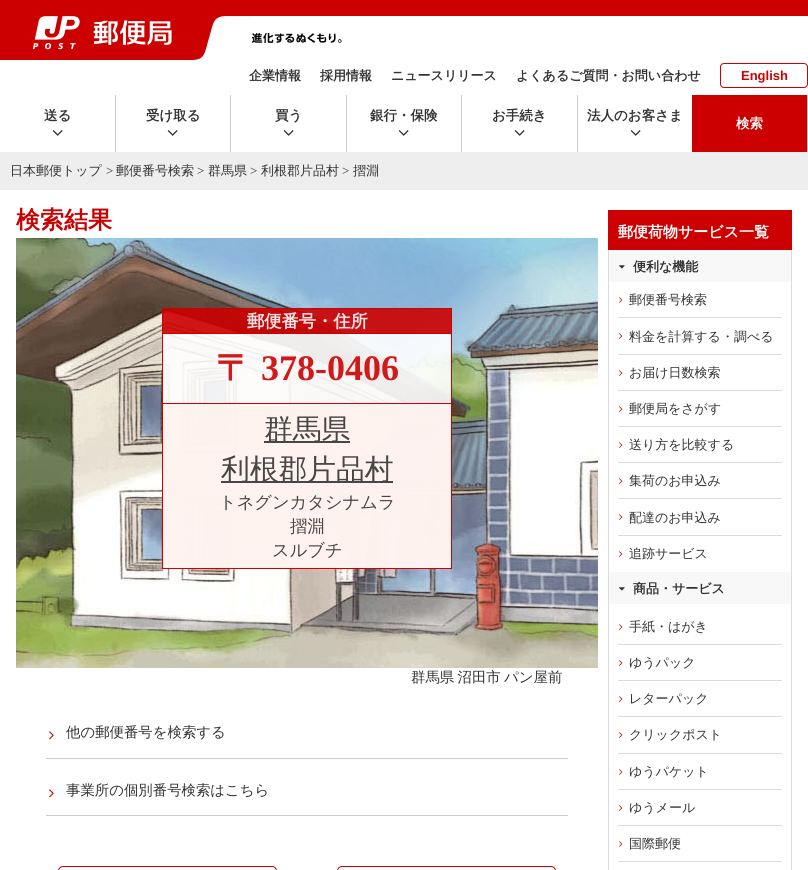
#include <cairo.h>
#include <math.h>
#include <stddef.h>


static void spaced_text(cairo_t *cr, double x, double y, const char *s, double letter, double word) {
    cairo_move_to(cr, x, y);
    while (*s) {
        char ch[5] = {0};
        int n = 0;
        do ch[n++] = *s++; while ((*s & 0xC0) == 0x80);
        cairo_show_text(cr, ch);
        cairo_rel_move_to(cr, letter + word * (*ch == ' '), 0);
    }
}

static void round_rect(cairo_t *cr, double x, double y, double w, double h, double r) {
    cairo_new_sub_path(cr);
    cairo_arc(cr, x + w - r, y + h - r, r, 0, M_PI / 2);
    cairo_arc(cr, x + r, y + h - r, r, M_PI / 2, M_PI);
    cairo_arc(cr, x + r, y + r, r, M_PI, 1.5 * M_PI);
    cairo_arc(cr, x + w - r, y + r, r, 1.5 * M_PI, 2 * M_PI);
    cairo_close_path(cr);
}

static void picture(cairo_t *cr, const char *path, double x, double y, double w, double h) {
    cairo_surface_t *image = cairo_image_surface_create_from_png(path);
    cairo_save(cr);
    cairo_set_source_surface(cr, image, x, y);
    cairo_rectangle(cr, x, y, w, h);
    cairo_fill(cr);
    cairo_restore(cr);
    cairo_surface_destroy(image);
}

int main(void) {
    cairo_surface_t *surface = cairo_image_surface_create(CAIRO_FORMAT_RGB24, 808, 870);
    cairo_t *cr = cairo_create(surface);
    cairo_font_options_t *options = cairo_font_options_create();
    cairo_font_options_set_hint_metrics(options, CAIRO_HINT_METRICS_OFF);
    cairo_font_options_set_hint_style(options, CAIRO_HINT_STYLE_NONE);
    cairo_set_font_options(cr, options);
    cairo_set_miter_limit(cr, 4);
    cairo_set_source_rgb(cr, 1, 1, 1);
    cairo_paint(cr);
    cairo_set_source_rgb(cr, 0.8, 0, 0);
    cairo_rectangle(cr, 0, 0, 808, 16);
    cairo_fill(cr);
    picture(cr, "img1.png", 0, 16, 251, 44);
    picture(cr, "img2.png", 252, 33, 90, 10);
    cairo_select_font_face(cr, "WenQuanYi Zen Hei", CAIRO_FONT_SLANT_NORMAL, CAIRO_FONT_WEIGHT_BOLD);
    cairo_set_font_size(cr, 13);
    cairo_set_source_rgb(cr, 0.2, 0.2, 0.2);
    cairo_move_to(cr, 249, 80);
    cairo_show_text(cr, "企業情報");
    cairo_move_to(cr, 320, 80);
    cairo_show_text(cr, "採用情報");
    cairo_move_to(cr, 391, 80);
    cairo_show_text(cr, "ニュースリリース");
    cairo_move_to(cr, 516, 80);
    cairo_show_text(cr, "よくあるご質問・お問い合わせ");
    round_rect(cr, 720.5, 63.5, 87, 24, 3.5);
    cairo_set_source_rgb(cr, 0.8, 0, 0);
    cairo_set_line_width(cr, 1);
    cairo_stroke(cr);
    cairo_select_font_face(cr, "Liberation Sans", CAIRO_FONT_SLANT_NORMAL, CAIRO_FONT_WEIGHT_BOLD);
    cairo_move_to(cr, 741, 80);
    cairo_show_text(cr, "English");
    cairo_set_source_rgb(cr, 0.8, 0.8, 0.8);
    cairo_rectangle(cr, 115, 95, 1, 57);
    cairo_fill(cr);
    cairo_select_font_face(cr, "WenQuanYi Zen Hei", CAIRO_FONT_SLANT_NORMAL, CAIRO_FONT_WEIGHT_BOLD);
    cairo_set_font_size(cr, 13.5);
    cairo_set_source_rgb(cr, 0.2, 0.2, 0.2);
    cairo_move_to(cr, 44, 120);
    cairo_show_text(cr, "送る");
    picture(cr, "img3.png", 52, 130, 11, 6);
    cairo_set_source_rgb(cr, 0.8, 0.8, 0.8);
    cairo_rectangle(cr, 230, 95, 1, 57);
    cairo_fill(cr);
    cairo_set_source_rgb(cr, 0.2, 0.2, 0.2);
    cairo_move_to(cr, 146, 120);
    cairo_show_text(cr, "受け取る");
    picture(cr, "img3.png", 167, 130, 11, 6);
    cairo_set_source_rgb(cr, 0.8, 0.8, 0.8);
    cairo_rectangle(cr, 346, 95, 1, 57);
    cairo_fill(cr);
    cairo_set_source_rgb(cr, 0.2, 0.2, 0.2);
    cairo_move_to(cr, 275, 120);
    cairo_show_text(cr, "買う");
    picture(cr, "img3.png", 283, 130, 11, 6);
    cairo_set_source_rgb(cr, 0.8, 0.8, 0.8);
    cairo_rectangle(cr, 461, 95, 1, 57);
    cairo_fill(cr);
    cairo_set_source_rgb(cr, 0.2, 0.2, 0.2);
    cairo_move_to(cr, 370, 120);
    cairo_show_text(cr, "銀行・保険");
    picture(cr, "img3.png", 398, 130, 11, 6);
    cairo_set_source_rgb(cr, 0.8, 0.8, 0.8);
    cairo_rectangle(cr, 577, 95, 1, 57);
    cairo_fill(cr);
    cairo_set_source_rgb(cr, 0.2, 0.2, 0.2);
    cairo_move_to(cr, 492, 120);
    cairo_show_text(cr, "お手続き");
    picture(cr, "img3.png", 514, 130, 11, 6);
    cairo_move_to(cr, 587, 120);
    cairo_show_text(cr, "法人のお客さま");
    picture(cr, "img3.png", 630, 130, 11, 6);
    cairo_set_source_rgb(cr, 0.8, 0, 0);
    cairo_rectangle(cr, 692, 95, 115, 57);
    cairo_fill(cr);
    cairo_set_source_rgb(cr, 0.8, 0.8, 0.8);
    cairo_rectangle(cr, 807, 95, 1, 57);
    cairo_fill(cr);
    cairo_set_source_rgb(cr, 1, 1, 1);
    cairo_move_to(cr, 736, 128);
    cairo_show_text(cr, "検索");
    cairo_set_source_rgb(cr, 0.933, 0.933, 0.933);
    cairo_rectangle(cr, 0, 152, 808, 38);
    cairo_fill(cr);
    cairo_select_font_face(cr, "WenQuanYi Zen Hei Medium", CAIRO_FONT_SLANT_NORMAL, CAIRO_FONT_WEIGHT_NORMAL);
    cairo_set_font_size(cr, 13);
    cairo_set_source_rgb(cr, 0.2, 0.2, 0.2);
    cairo_move_to(cr, 10, 175);
    cairo_show_text(cr, "日本郵便トップ");
    cairo_select_font_face(cr, "Liberation Serif", CAIRO_FONT_SLANT_NORMAL, CAIRO_FONT_WEIGHT_NORMAL);
    cairo_move_to(cr, 106, 175);
    cairo_show_text(cr, ">");
    cairo_select_font_face(cr, "WenQuanYi Zen Hei Medium", CAIRO_FONT_SLANT_NORMAL, CAIRO_FONT_WEIGHT_NORMAL);
    cairo_move_to(cr, 116, 175);
    cairo_show_text(cr, "郵便番号検索");
    cairo_select_font_face(cr, "Liberation Serif", CAIRO_FONT_SLANT_NORMAL, CAIRO_FONT_WEIGHT_NORMAL);
    cairo_move_to(cr, 197, 175);
    cairo_show_text(cr, ">");
    cairo_select_font_face(cr, "WenQuanYi Zen Hei Medium", CAIRO_FONT_SLANT_NORMAL, CAIRO_FONT_WEIGHT_NORMAL);
    cairo_move_to(cr, 208, 175);
    cairo_show_text(cr, "群馬県");
    cairo_select_font_face(cr, "Liberation Serif", CAIRO_FONT_SLANT_NORMAL, CAIRO_FONT_WEIGHT_NORMAL);
    cairo_move_to(cr, 250, 175);
    cairo_show_text(cr, ">");
    cairo_select_font_face(cr, "WenQuanYi Zen Hei Medium", CAIRO_FONT_SLANT_NORMAL, CAIRO_FONT_WEIGHT_NORMAL);
    cairo_move_to(cr, 261, 175);
    cairo_show_text(cr, "利根郡片品村");
    cairo_select_font_face(cr, "Liberation Serif", CAIRO_FONT_SLANT_NORMAL, CAIRO_FONT_WEIGHT_NORMAL);
    cairo_move_to(cr, 342, 175);
    cairo_show_text(cr, ">");
    cairo_select_font_face(cr, "WenQuanYi Zen Hei Medium", CAIRO_FONT_SLANT_NORMAL, CAIRO_FONT_WEIGHT_NORMAL);
    cairo_move_to(cr, 353, 175);
    cairo_show_text(cr, "摺淵");
    cairo_select_font_face(cr, "WenQuanYi Zen Hei", CAIRO_FONT_SLANT_NORMAL, CAIRO_FONT_WEIGHT_BOLD);
    cairo_set_font_size(cr, 24);
    cairo_set_source_rgb(cr, 0.8, 0, 0);
    cairo_move_to(cr, 16, 228);
    cairo_show_text(cr, "検索結果");
    picture(cr, "img4.png", 16, 238, 582, 430);
    cairo_set_source_rgba(cr, 0.8, 0, 0, 0.9);
    cairo_rectangle(cr, 162, 308, 290, 1);
    cairo_fill(cr);
    cairo_set_source_rgba(cr, 1, 1, 1, 0.9);
    cairo_rectangle(cr, 162, 334, 290, 70);
    cairo_fill(cr);
    cairo_rectangle(cr, 162, 404, 290, 164);
    cairo_fill(cr);
    cairo_set_source_rgba(cr, 0.8, 0, 0, 0.9);
    cairo_rectangle(cr, 451, 334, 1, 235);
    cairo_fill(cr);
    cairo_rectangle(cr, 162, 568, 290, 1);
    cairo_fill(cr);
    cairo_rectangle(cr, 162, 334, 1, 235);
    cairo_fill(cr);
    cairo_rectangle(cr, 163, 309, 288, 24);
    cairo_fill(cr);
    cairo_rectangle(cr, 162, 308, 290, 1);
    cairo_fill(cr);
    cairo_rectangle(cr, 162, 403, 290, 1);
    cairo_fill(cr);
    cairo_rectangle(cr, 451, 403, 1, 166);
    cairo_fill(cr);
    cairo_rectangle(cr, 451, 333, 1, 71);
    cairo_fill(cr);
    cairo_set_source_rgb(cr, 0.8, 0, 0);
    cairo_rectangle(cr, 451, 308, 1, 26);
    cairo_fill(cr);
    cairo_set_source_rgba(cr, 0.8, 0, 0, 0.9);
    cairo_rectangle(cr, 162, 568, 290, 1);
    cairo_fill(cr);
    cairo_rectangle(cr, 162, 403, 1, 166);
    cairo_fill(cr);
    cairo_rectangle(cr, 162, 403, 290, 1);
    cairo_fill(cr);
    cairo_rectangle(cr, 162, 333, 1, 71);
    cairo_fill(cr);
    cairo_set_source_rgb(cr, 0.8, 0, 0);
    cairo_rectangle(cr, 162, 333, 290, 1);
    cairo_fill(cr);
    cairo_rectangle(cr, 162, 308, 1, 26);
    cairo_fill(cr);
    cairo_set_font_size(cr, 17.25);
    cairo_set_source_rgb(cr, 0.976, 0.906, 0.906);
    cairo_move_to(cr, 247, 327);
    cairo_show_text(cr, "郵便番号・住所");
    cairo_set_font_size(cr, 36);
    cairo_set_source_rgb(cr, 0.82, 0.098, 0.098);
    cairo_move_to(cr, 216, 380);
    cairo_show_text(cr, "〒");
    cairo_select_font_face(cr, "Liberation Serif", CAIRO_FONT_SLANT_NORMAL, CAIRO_FONT_WEIGHT_BOLD);
    cairo_move_to(cr, 261, 380);
    cairo_show_text(cr, "378-0406");
    cairo_set_source_rgba(cr, 1, 0.949, 0.937, 0.9);
    cairo_rectangle(cr, 163, 404, 288, 164);
    cairo_fill(cr);
    cairo_set_source_rgb(cr, 0.278, 0.275, 0.275);
    cairo_rectangle(cr, 264, 441, 86, 2);
    cairo_fill(cr);
    cairo_select_font_face(cr, "WenQuanYi Zen Hei Medium", CAIRO_FONT_SLANT_NORMAL, CAIRO_FONT_WEIGHT_NORMAL);
    cairo_set_font_size(cr, 28.75);
    cairo_set_source_rgb(cr, 0.278, 0.275, 0.271);
    cairo_move_to(cr, 264, 439);
    cairo_show_text(cr, "群馬県");
    cairo_set_source_rgb(cr, 0.278, 0.275, 0.275);
    cairo_rectangle(cr, 221, 481, 172, 2);
    cairo_fill(cr);
    cairo_set_source_rgb(cr, 0.278, 0.275, 0.271);
    cairo_move_to(cr, 221, 479);
    cairo_show_text(cr, "利根郡片品村");
    cairo_set_font_size(cr, 17.25);
    cairo_move_to(cr, 219, 508);
    cairo_show_text(cr, "トネグンカタシナムラ");
    cairo_move_to(cr, 290, 532);
    cairo_show_text(cr, "摺淵");
    cairo_move_to(cr, 272, 556);
    cairo_show_text(cr, "スルブチ");
    cairo_set_font_size(cr, 14.4);
    cairo_set_source_rgb(cr, 0.2, 0.2, 0.2);
    spaced_text(cr, 411, 682, "群馬県 沼田市 パン屋前", 0, -1);
    cairo_set_source_rgb(cr, 0.8, 0.8, 0.8);
    cairo_rectangle(cr, 46, 758, 522, 1);
    cairo_fill(cr);
    picture(cr, "img5.png", 49, 731, 5, 9);
    cairo_set_source_rgb(cr, 0.2, 0.2, 0.2);
    cairo_move_to(cr, 66, 737);
    cairo_show_text(cr, "他の郵便番号を検索する");
    cairo_set_source_rgb(cr, 0.8, 0.8, 0.8);
    cairo_rectangle(cr, 46, 815, 522, 1);
    cairo_fill(cr);
    picture(cr, "img5.png", 49, 789, 5, 9);
    cairo_set_source_rgb(cr, 0.2, 0.2, 0.2);
    cairo_move_to(cr, 66, 795);
    cairo_show_text(cr, "事業所の個別番号検索はこちら");
    round_rect(cr, 58.5, 866.5, 218, 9, 4.5);
    cairo_set_source_rgb(cr, 0.8, 0, 0);
    cairo_stroke(cr);
    round_rect(cr, 337.5, 866.5, 218, 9, 4.5);
    cairo_stroke(cr);
    cairo_rectangle(cr, 608, 210, 184, 40);
    cairo_fill(cr);
    cairo_select_font_face(cr, "WenQuanYi Zen Hei", CAIRO_FONT_SLANT_NORMAL, CAIRO_FONT_WEIGHT_BOLD);
    cairo_set_font_size(cr, 15);
    cairo_set_source_rgb(cr, 1, 1, 1);
    cairo_move_to(cr, 618, 237);
    cairo_show_text(cr, "郵便荷物サービス一覧");
    cairo_set_source_rgb(cr, 0.969, 0.969, 0.969);
    cairo_rectangle(cr, 609, 250, 182, 32);
    cairo_fill(cr);
    picture(cr, "img6.png", 619, 265, 6, 4);
    cairo_set_font_size(cr, 13);
    cairo_set_source_rgb(cr, 0.2, 0.2, 0.2);
    cairo_move_to(cr, 633, 271);
    cairo_show_text(cr, "便利な機能");
    cairo_set_source_rgb(cr, 0.863, 0.863, 0.863);
    cairo_rectangle(cr, 791, 250, 1, 322);
    cairo_fill(cr);
    cairo_rectangle(cr, 608, 250, 1, 322);
    cairo_fill(cr);
    picture(cr, "img7.png", 619, 297, 4, 6);
    cairo_select_font_face(cr, "WenQuanYi Zen Hei Medium", CAIRO_FONT_SLANT_NORMAL, CAIRO_FONT_WEIGHT_NORMAL);
    cairo_set_source_rgb(cr, 0.2, 0.2, 0.2);
    cairo_move_to(cr, 629, 304);
    cairo_show_text(cr, "郵便番号検索");
    cairo_set_source_rgb(cr, 0.863, 0.863, 0.863);
    cairo_rectangle(cr, 618, 317, 164, 1);
    cairo_fill(cr);
    picture(cr, "img7.png", 619, 333, 4, 6);
    cairo_set_source_rgb(cr, 0.2, 0.2, 0.2);
    cairo_move_to(cr, 629, 341);
    cairo_show_text(cr, "料金を計算する・調べる");
    cairo_set_source_rgb(cr, 0.863, 0.863, 0.863);
    cairo_rectangle(cr, 618, 354, 164, 1);
    cairo_fill(cr);
    picture(cr, "img7.png", 619, 370, 4, 6);
    cairo_set_source_rgb(cr, 0.2, 0.2, 0.2);
    cairo_move_to(cr, 629, 377);
    cairo_show_text(cr, "お届け日数検索");
    cairo_set_source_rgb(cr, 0.863, 0.863, 0.863);
    cairo_rectangle(cr, 618, 390, 164, 1);
    cairo_fill(cr);
    picture(cr, "img7.png", 619, 406, 4, 6);
    cairo_set_source_rgb(cr, 0.2, 0.2, 0.2);
    cairo_move_to(cr, 629, 413);
    cairo_show_text(cr, "郵便局をさがす");
    cairo_set_source_rgb(cr, 0.863, 0.863, 0.863);
    cairo_rectangle(cr, 618, 426, 164, 1);
    cairo_fill(cr);
    picture(cr, "img7.png", 619, 442, 4, 6);
    cairo_set_source_rgb(cr, 0.2, 0.2, 0.2);
    cairo_move_to(cr, 629, 449);
    cairo_show_text(cr, "送り方を比較する");
    cairo_set_source_rgb(cr, 0.863, 0.863, 0.863);
    cairo_rectangle(cr, 618, 462, 164, 1);
    cairo_fill(cr);
    picture(cr, "img7.png", 619, 478, 4, 6);
    cairo_set_source_rgb(cr, 0.2, 0.2, 0.2);
    cairo_move_to(cr, 629, 485);
    cairo_show_text(cr, "集荷のお申込み");
    cairo_set_source_rgb(cr, 0.863, 0.863, 0.863);
    cairo_rectangle(cr, 618, 498, 164, 1);
    cairo_fill(cr);
    picture(cr, "img7.png", 619, 514, 4, 6);
    cairo_set_source_rgb(cr, 0.2, 0.2, 0.2);
    cairo_move_to(cr, 629, 522);
    cairo_show_text(cr, "配達のお申込み");
    cairo_set_source_rgb(cr, 0.863, 0.863, 0.863);
    cairo_rectangle(cr, 618, 535, 164, 1);
    cairo_fill(cr);
    picture(cr, "img7.png", 619, 551, 4, 6);
    cairo_set_source_rgb(cr, 0.2, 0.2, 0.2);
    cairo_move_to(cr, 629, 558);
    cairo_show_text(cr, "追跡サービス");
    cairo_set_source_rgb(cr, 0.969, 0.969, 0.969);
    cairo_rectangle(cr, 609, 572, 182, 32);
    cairo_fill(cr);
    picture(cr, "img6.png", 619, 587, 6, 4);
    cairo_select_font_face(cr, "WenQuanYi Zen Hei", CAIRO_FONT_SLANT_NORMAL, CAIRO_FONT_WEIGHT_BOLD);
    cairo_set_source_rgb(cr, 0.2, 0.2, 0.2);
    cairo_move_to(cr, 633, 593);
    cairo_show_text(cr, "商品・サービス");
    cairo_set_source_rgb(cr, 0.863, 0.863, 0.863);
    cairo_rectangle(cr, 791, 572, 1, 298);
    cairo_fill(cr);
    cairo_rectangle(cr, 608, 572, 1, 298);
    cairo_fill(cr);
    picture(cr, "img7.png", 619, 624, 4, 6);
    cairo_select_font_face(cr, "WenQuanYi Zen Hei Medium", CAIRO_FONT_SLANT_NORMAL, CAIRO_FONT_WEIGHT_NORMAL);
    cairo_set_source_rgb(cr, 0.2, 0.2, 0.2);
    cairo_move_to(cr, 629, 631);
    cairo_show_text(cr, "手紙・はがき");
    cairo_set_source_rgb(cr, 0.863, 0.863, 0.863);
    cairo_rectangle(cr, 618, 644, 164, 1);
    cairo_fill(cr);
    picture(cr, "img7.png", 619, 660, 4, 6);
    cairo_set_source_rgb(cr, 0.2, 0.2, 0.2);
    cairo_move_to(cr, 629, 667);
    cairo_show_text(cr, "ゆうパック");
    cairo_set_source_rgb(cr, 0.863, 0.863, 0.863);
    cairo_rectangle(cr, 618, 680, 164, 1);
    cairo_fill(cr);
    picture(cr, "img7.png", 619, 696, 4, 6);
    cairo_set_source_rgb(cr, 0.2, 0.2, 0.2);
    cairo_move_to(cr, 629, 703);
    cairo_show_text(cr, "レターパック");
    cairo_set_source_rgb(cr, 0.863, 0.863, 0.863);
    cairo_rectangle(cr, 618, 716, 164, 1);
    cairo_fill(cr);
    picture(cr, "img7.png", 619, 732, 4, 6);
    cairo_set_source_rgb(cr, 0.2, 0.2, 0.2);
    cairo_move_to(cr, 629, 739);
    cairo_show_text(cr, "クリックポスト");
    cairo_set_source_rgb(cr, 0.863, 0.863, 0.863);
    cairo_rectangle(cr, 618, 753, 164, 1);
    cairo_fill(cr);
    picture(cr, "img7.png", 619, 769, 4, 6);
    cairo_set_source_rgb(cr, 0.2, 0.2, 0.2);
    cairo_move_to(cr, 629, 776);
    cairo_show_text(cr, "ゆうパケット");
    cairo_set_source_rgb(cr, 0.863, 0.863, 0.863);
    cairo_rectangle(cr, 618, 789, 164, 1);
    cairo_fill(cr);
    picture(cr, "img7.png", 619, 805, 4, 6);
    cairo_set_source_rgb(cr, 0.2, 0.2, 0.2);
    cairo_move_to(cr, 629, 812);
    cairo_show_text(cr, "ゆうメール");
    cairo_set_source_rgb(cr, 0.863, 0.863, 0.863);
    cairo_rectangle(cr, 618, 825, 164, 1);
    cairo_fill(cr);
    picture(cr, "img7.png", 619, 841, 4, 6);
    cairo_set_source_rgb(cr, 0.2, 0.2, 0.2);
    cairo_move_to(cr, 629, 848);
    cairo_show_text(cr, "国際郵便");
    cairo_set_source_rgb(cr, 0.863, 0.863, 0.863);
    cairo_rectangle(cr, 618, 861, 164, 1);
    cairo_fill(cr);
    cairo_surface_write_to_png(surface, "page.png");
    cairo_font_options_destroy(options);
    cairo_destroy(cr);
    cairo_surface_destroy(surface);
    return 0;
}
